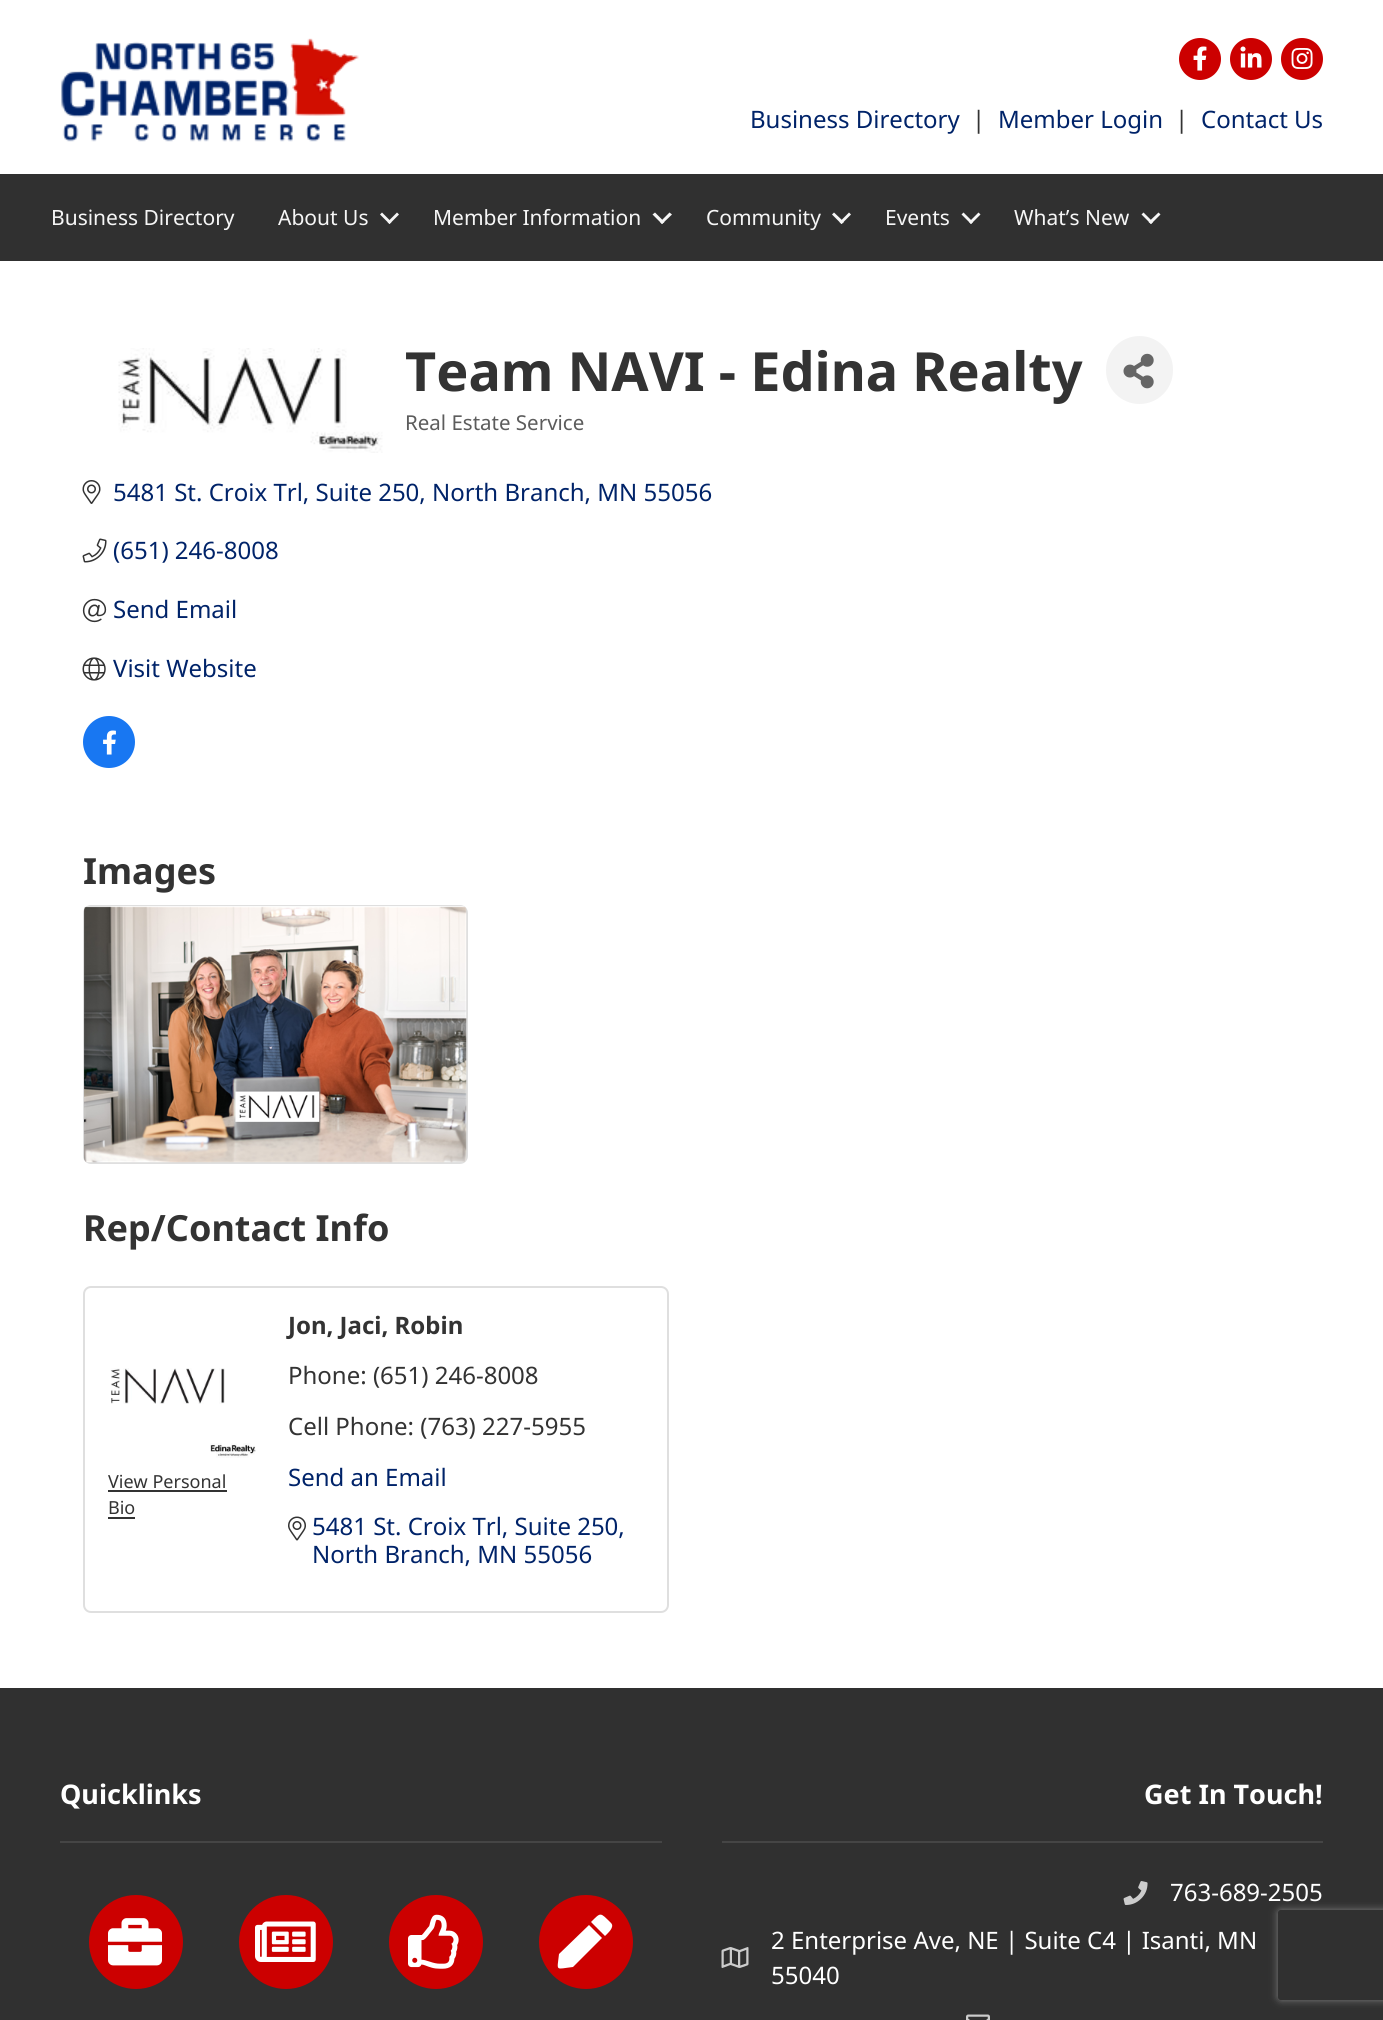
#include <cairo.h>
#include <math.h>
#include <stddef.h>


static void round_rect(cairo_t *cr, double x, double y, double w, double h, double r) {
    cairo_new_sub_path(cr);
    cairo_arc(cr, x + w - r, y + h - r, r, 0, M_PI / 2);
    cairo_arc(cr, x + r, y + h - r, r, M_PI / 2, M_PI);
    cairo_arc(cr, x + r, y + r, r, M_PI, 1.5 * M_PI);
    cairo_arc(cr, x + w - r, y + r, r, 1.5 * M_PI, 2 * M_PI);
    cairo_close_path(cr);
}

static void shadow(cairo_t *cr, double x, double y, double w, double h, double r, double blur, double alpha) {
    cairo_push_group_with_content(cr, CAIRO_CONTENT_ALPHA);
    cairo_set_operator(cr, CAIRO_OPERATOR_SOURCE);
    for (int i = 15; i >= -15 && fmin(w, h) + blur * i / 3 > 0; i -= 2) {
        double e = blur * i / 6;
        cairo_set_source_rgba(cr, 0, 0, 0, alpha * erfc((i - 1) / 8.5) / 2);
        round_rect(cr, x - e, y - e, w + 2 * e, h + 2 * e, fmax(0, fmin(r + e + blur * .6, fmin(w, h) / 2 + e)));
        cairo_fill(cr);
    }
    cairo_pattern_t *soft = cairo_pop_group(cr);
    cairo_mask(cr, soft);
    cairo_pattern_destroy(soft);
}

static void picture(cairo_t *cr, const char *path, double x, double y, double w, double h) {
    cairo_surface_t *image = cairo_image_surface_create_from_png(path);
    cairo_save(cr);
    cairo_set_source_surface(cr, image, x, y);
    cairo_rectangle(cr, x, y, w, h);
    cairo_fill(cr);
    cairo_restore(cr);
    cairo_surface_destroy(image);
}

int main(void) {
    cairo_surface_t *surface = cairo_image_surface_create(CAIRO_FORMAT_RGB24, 1383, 2020);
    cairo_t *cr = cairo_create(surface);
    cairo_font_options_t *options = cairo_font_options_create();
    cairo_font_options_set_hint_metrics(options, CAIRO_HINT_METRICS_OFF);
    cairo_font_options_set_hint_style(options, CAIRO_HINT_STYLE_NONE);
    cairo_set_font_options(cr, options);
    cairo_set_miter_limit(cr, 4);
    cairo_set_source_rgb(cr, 1, 1, 1);
    cairo_paint(cr);
    picture(cr, "img1.png", 61, 38, 298, 104);
    cairo_set_source_rgb(cr, 0.8, 0, 0);
    cairo_arc(cr, 1200, 59, 21, 0, 2 * M_PI);
    cairo_fill(cr);
    picture(cr, "img2.png", 1193, 46, 14, 25);
    cairo_arc(cr, 1251, 59, 21, 0, 2 * M_PI);
    cairo_fill(cr);
    picture(cr, "img3.png", 1240, 46, 22, 22);
    cairo_arc(cr, 1302, 59, 21, 0, 2 * M_PI);
    cairo_fill(cr);
    picture(cr, "img4.png", 1291, 48, 22, 21);
    cairo_select_font_face(cr, "Noto Sans", CAIRO_FONT_SLANT_NORMAL, CAIRO_FONT_WEIGHT_NORMAL);
    cairo_set_font_size(cr, 24);
    cairo_set_source_rgb(cr, 0, 0.137, 0.412);
    cairo_move_to(cr, 750, 128);
    cairo_show_text(cr, "Business Directory");
    cairo_set_source_rgb(cr, 0.2, 0.2, 0.2);
    cairo_move_to(cr, 972, 128);
    cairo_show_text(cr, "|");
    cairo_set_source_rgb(cr, 0, 0.137, 0.412);
    cairo_move_to(cr, 998, 128);
    cairo_show_text(cr, "Member Login");
    cairo_set_source_rgb(cr, 0.2, 0.2, 0.2);
    cairo_move_to(cr, 1175, 128);
    cairo_show_text(cr, "|");
    cairo_set_source_rgb(cr, 0, 0.137, 0.412);
    cairo_move_to(cr, 1201, 128);
    cairo_show_text(cr, "Contact Us");
    cairo_set_source_rgb(cr, 0.188, 0.188, 0.188);
    cairo_rectangle(cr, 0, 174, 1383, 87);
    cairo_fill(cr);
    cairo_set_font_size(cr, 21);
    cairo_set_source_rgb(cr, 0.961, 0.961, 0.961);
    cairo_move_to(cr, 51, 225);
    cairo_show_text(cr, "Business Directory");
    cairo_move_to(cr, 278, 225);
    cairo_show_text(cr, "About Us");
    cairo_new_path(cr);
    cairo_move_to(cr, 397, 212.5);
    cairo_line_to(cr, 399, 214.5);
    cairo_line_to(cr, 389.5, 224);
    cairo_line_to(cr, 387.5, 222);
    cairo_close_path(cr);
    cairo_fill(cr);
    cairo_new_path(cr);
    cairo_move_to(cr, 382, 212.5);
    cairo_line_to(cr, 391.5, 222);
    cairo_line_to(cr, 389.5, 224);
    cairo_line_to(cr, 380, 214.5);
    cairo_close_path(cr);
    cairo_fill(cr);
    cairo_move_to(cr, 433, 225);
    cairo_show_text(cr, "Member Information");
    cairo_new_path(cr);
    cairo_move_to(cr, 669.5, 212.5);
    cairo_line_to(cr, 672, 214.5);
    cairo_line_to(cr, 662, 224);
    cairo_line_to(cr, 660, 222);
    cairo_close_path(cr);
    cairo_fill(cr);
    cairo_new_path(cr);
    cairo_move_to(cr, 655, 212.5);
    cairo_line_to(cr, 664.5, 222);
    cairo_line_to(cr, 662, 224);
    cairo_line_to(cr, 652.5, 214.5);
    cairo_close_path(cr);
    cairo_fill(cr);
    cairo_move_to(cr, 706, 225);
    cairo_show_text(cr, "Community");
    cairo_new_path(cr);
    cairo_move_to(cr, 849, 212.5);
    cairo_line_to(cr, 851, 214.5);
    cairo_line_to(cr, 841.5, 224);
    cairo_line_to(cr, 839.5, 222);
    cairo_close_path(cr);
    cairo_fill(cr);
    cairo_new_path(cr);
    cairo_move_to(cr, 834, 212.5);
    cairo_line_to(cr, 844, 222);
    cairo_line_to(cr, 841.5, 224);
    cairo_line_to(cr, 832, 214.5);
    cairo_close_path(cr);
    cairo_fill(cr);
    cairo_move_to(cr, 885, 225);
    cairo_show_text(cr, "Events");
    cairo_new_path(cr);
    cairo_move_to(cr, 978.5, 212.5);
    cairo_line_to(cr, 980.5, 214.5);
    cairo_line_to(cr, 971, 224);
    cairo_line_to(cr, 969, 222);
    cairo_close_path(cr);
    cairo_fill(cr);
    cairo_new_path(cr);
    cairo_move_to(cr, 963.5, 212.5);
    cairo_line_to(cr, 973, 222);
    cairo_line_to(cr, 971, 224);
    cairo_line_to(cr, 961.5, 214.5);
    cairo_close_path(cr);
    cairo_fill(cr);
    cairo_move_to(cr, 1014, 225);
    cairo_show_text(cr, "What’s New");
    cairo_new_path(cr);
    cairo_move_to(cr, 1158.5, 212.5);
    cairo_line_to(cr, 1160.5, 214.5);
    cairo_line_to(cr, 1151, 224);
    cairo_line_to(cr, 1148.5, 222);
    cairo_close_path(cr);
    cairo_fill(cr);
    cairo_new_path(cr);
    cairo_move_to(cr, 1143.5, 212.5);
    cairo_line_to(cr, 1153, 222);
    cairo_line_to(cr, 1151, 224);
    cairo_line_to(cr, 1141.5, 214.5);
    cairo_close_path(cr);
    cairo_fill(cr);
    picture(cr, "img5.png", 118, 348, 265, 105);
    cairo_select_font_face(cr, "Noto Sans", CAIRO_FONT_SLANT_NORMAL, CAIRO_FONT_WEIGHT_BOLD);
    cairo_set_font_size(cr, 54);
    cairo_set_source_rgb(cr, 0.2, 0.2, 0.2);
    cairo_move_to(cr, 405, 391);
    cairo_show_text(cr, "Team NAVI - Edina Realty");
    cairo_set_source_rgb(cr, 0.953, 0.953, 0.953);
    round_rect(cr, 1106, 336, 67, 68, 33.5);
    cairo_fill(cr);
    picture(cr, "img6.png", 1123, 353, 31, 36);
    cairo_select_font_face(cr, "Noto Sans", CAIRO_FONT_SLANT_NORMAL, CAIRO_FONT_WEIGHT_NORMAL);
    cairo_set_font_size(cr, 20.5);
    cairo_set_source_rgb(cr, 0.361, 0.361, 0.361);
    cairo_move_to(cr, 405, 430);
    cairo_show_text(cr, "Real Estate Service");
    picture(cr, "img7.png", 82, 480, 19, 24);
    cairo_set_font_size(cr, 24);
    cairo_set_source_rgb(cr, 0, 0.137, 0.412);
    cairo_move_to(cr, 113, 501);
    cairo_show_text(cr, "5481 St. Croix Trl, Suite 250, North Branch, MN 55056");
    picture(cr, "img8.png", 82, 538, 25, 25);
    cairo_move_to(cr, 113, 559);
    cairo_show_text(cr, "(651) 246-8008");
    picture(cr, "img9.png", 82, 598, 25, 25);
    cairo_move_to(cr, 113, 618);
    cairo_show_text(cr, "Send Email");
    picture(cr, "img10.png", 82, 657, 24, 24);
    cairo_move_to(cr, 113, 677);
    cairo_show_text(cr, "Visit Website");
    cairo_set_source_rgb(cr, 0.094, 0.467, 0.949);
    cairo_new_path(cr);
    cairo_arc(cr, 109, 742, 26, 0, 2 * M_PI);
    cairo_fill(cr);
    picture(cr, "img11.png", 103, 730, 13, 25);
    cairo_select_font_face(cr, "Noto Sans", CAIRO_FONT_SLANT_NORMAL, CAIRO_FONT_WEIGHT_BOLD);
    cairo_set_font_size(cr, 36);
    cairo_set_source_rgb(cr, 0.2, 0.2, 0.2);
    cairo_move_to(cr, 83, 884);
    cairo_show_text(cr, "Images");
    round_rect(cr, 84, 906, 383, 257, 7);
    cairo_set_source_rgb(cr, 0.875, 0.875, 0.875);
    cairo_stroke(cr);
    picture(cr, "img12.png", 84, 906, 383, 257);
    cairo_set_source_rgb(cr, 0.2, 0.2, 0.2);
    cairo_move_to(cr, 83, 1241);
    cairo_show_text(cr, "Rep/Contact Info");
    round_rect(cr, 84, 1287, 584, 325, 7);
    cairo_set_source_rgb(cr, 0.875, 0.875, 0.875);
    cairo_stroke(cr);
    picture(cr, "img13.png", 110, 1368, 146, 90);
    cairo_select_font_face(cr, "Noto Sans", CAIRO_FONT_SLANT_NORMAL, CAIRO_FONT_WEIGHT_NORMAL);
    cairo_set_font_size(cr, 18);
    cairo_set_source_rgb(cr, 0.2, 0.2, 0.2);
    cairo_move_to(cr, 108, 1488);
    cairo_show_text(cr, "View Personal");
    cairo_rectangle(cr, 108, 1490, 119, 2);
    cairo_fill(cr);
    cairo_move_to(cr, 108, 1514);
    cairo_show_text(cr, "Bio");
    cairo_rectangle(cr, 108, 1517, 27, 2);
    cairo_fill(cr);
    cairo_select_font_face(cr, "Noto Sans", CAIRO_FONT_SLANT_NORMAL, CAIRO_FONT_WEIGHT_BOLD);
    cairo_set_font_size(cr, 24);
    cairo_move_to(cr, 288, 1334);
    cairo_show_text(cr, "Jon, Jaci, Robin");
    cairo_select_font_face(cr, "Noto Sans", CAIRO_FONT_SLANT_NORMAL, CAIRO_FONT_WEIGHT_NORMAL);
    cairo_move_to(cr, 288, 1384);
    cairo_show_text(cr, "Phone: (651) 246-8008");
    cairo_move_to(cr, 288, 1435);
    cairo_show_text(cr, "Cell Phone: (763) 227-5955");
    cairo_set_source_rgb(cr, 0, 0.137, 0.412);
    cairo_move_to(cr, 288, 1486);
    cairo_show_text(cr, "Send an Email");
    picture(cr, "img14.png", 288, 1516, 18, 25);
    cairo_move_to(cr, 312, 1535);
    cairo_show_text(cr, "5481 St. Croix Trl, Suite 250,");
    cairo_move_to(cr, 312, 1563);
    cairo_show_text(cr, "North Branch, MN 55056");
    cairo_set_source_rgb(cr, 0.188, 0.188, 0.188);
    cairo_rectangle(cr, 0, 1688, 1383, 332);
    cairo_fill(cr);
    cairo_select_font_face(cr, "Noto Sans", CAIRO_FONT_SLANT_NORMAL, CAIRO_FONT_WEIGHT_BOLD);
    cairo_set_font_size(cr, 27);
    cairo_set_source_rgb(cr, 1, 1, 1);
    cairo_move_to(cr, 60, 1804);
    cairo_show_text(cr, "Quicklinks");
    cairo_set_source_rgb(cr, 0.271, 0.271, 0.271);
    cairo_rectangle(cr, 60, 1841, 602, 2);
    cairo_fill(cr);
    cairo_set_source_rgb(cr, 0.8, 0, 0);
    cairo_arc(cr, 136, 1942, 47, 0, 2 * M_PI);
    cairo_fill(cr);
    picture(cr, "img15.png", 108, 1918, 54, 48);
    cairo_arc(cr, 286, 1942, 47, 0, 2 * M_PI);
    cairo_fill(cr);
    picture(cr, "img16.png", 255, 1921, 61, 41);
    cairo_arc(cr, 436, 1942, 47, 0, 2 * M_PI);
    cairo_fill(cr);
    picture(cr, "img17.png", 408, 1914, 51, 55);
    cairo_arc(cr, 586, 1942, 47, 0, 2 * M_PI);
    cairo_fill(cr);
    cairo_set_source_rgb(cr, 1, 1, 1);
    cairo_new_path(cr);
    cairo_move_to(cr, 589, 1925);
    cairo_line_to(cr, 602, 1938);
    cairo_line_to(cr, 573, 1967);
    cairo_curve_to(cr, 555, 1969, 557, 1972, 559, 1954);
    cairo_close_path(cr);
    cairo_move_to(cr, 611, 1923);
    cairo_curve_to(cr, 615, 1927, 608, 1933, 605, 1936);
    cairo_line_to(cr, 591, 1922);
    cairo_curve_to(cr, 601, 1912, 600, 1912, 611, 1923);
    cairo_close_path(cr);
    cairo_fill(cr);
    cairo_move_to(cr, 1144, 1804);
    cairo_show_text(cr, "Get In Touch!");
    cairo_set_source_rgb(cr, 0.271, 0.271, 0.271);
    cairo_rectangle(cr, 722, 1841, 601, 2);
    cairo_fill(cr);
    picture(cr, "img18.png", 1123, 1881, 25, 24);
    cairo_select_font_face(cr, "Noto Sans", CAIRO_FONT_SLANT_NORMAL, CAIRO_FONT_WEIGHT_NORMAL);
    cairo_set_font_size(cr, 24);
    cairo_set_source_rgb(cr, 1, 1, 1);
    cairo_move_to(cr, 1170, 1901);
    cairo_show_text(cr, "763-689-2505");
    picture(cr, "img19.png", 721, 1947, 28, 21);
    cairo_move_to(cr, 771, 1949);
    cairo_show_text(cr, "2 Enterprise Ave, NE | Suite C4 | Isanti, MN");
    cairo_move_to(cr, 771, 1984);
    cairo_show_text(cr, "55040");
    picture(cr, "img20.png", 966, 2014, 24, 6);
    cairo_save(cr);
    cairo_set_fill_rule(cr, CAIRO_FILL_RULE_EVEN_ODD);
    cairo_new_path(cr);
    cairo_move_to(cr, 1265, 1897);
    cairo_line_to(cr, 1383, 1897);
    cairo_line_to(cr, 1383, 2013);
    cairo_line_to(cr, 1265, 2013);
    cairo_close_path(cr);
    cairo_move_to(cr, 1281, 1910);
    cairo_line_to(cr, 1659, 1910);
    cairo_curve_to(cr, 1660.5, 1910, 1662, 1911.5, 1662, 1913);
    cairo_line_to(cr, 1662, 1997);
    cairo_curve_to(cr, 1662, 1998.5, 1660.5, 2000, 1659, 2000);
    cairo_line_to(cr, 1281, 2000);
    cairo_curve_to(cr, 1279.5, 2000, 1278, 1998.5, 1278, 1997);
    cairo_line_to(cr, 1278, 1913);
    cairo_curve_to(cr, 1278, 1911.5, 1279.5, 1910, 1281, 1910);
    cairo_close_path(cr);
    cairo_clip(cr);
    cairo_set_source_rgb(cr, 0.502, 0.502, 0.502);
    shadow(cr, 1278, 1910, 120, 90, 3, 4, 1);
    cairo_restore(cr);
    cairo_surface_write_to_png(surface, "page.png");
    cairo_font_options_destroy(options);
    cairo_destroy(cr);
    cairo_surface_destroy(surface);
    return 0;
}
